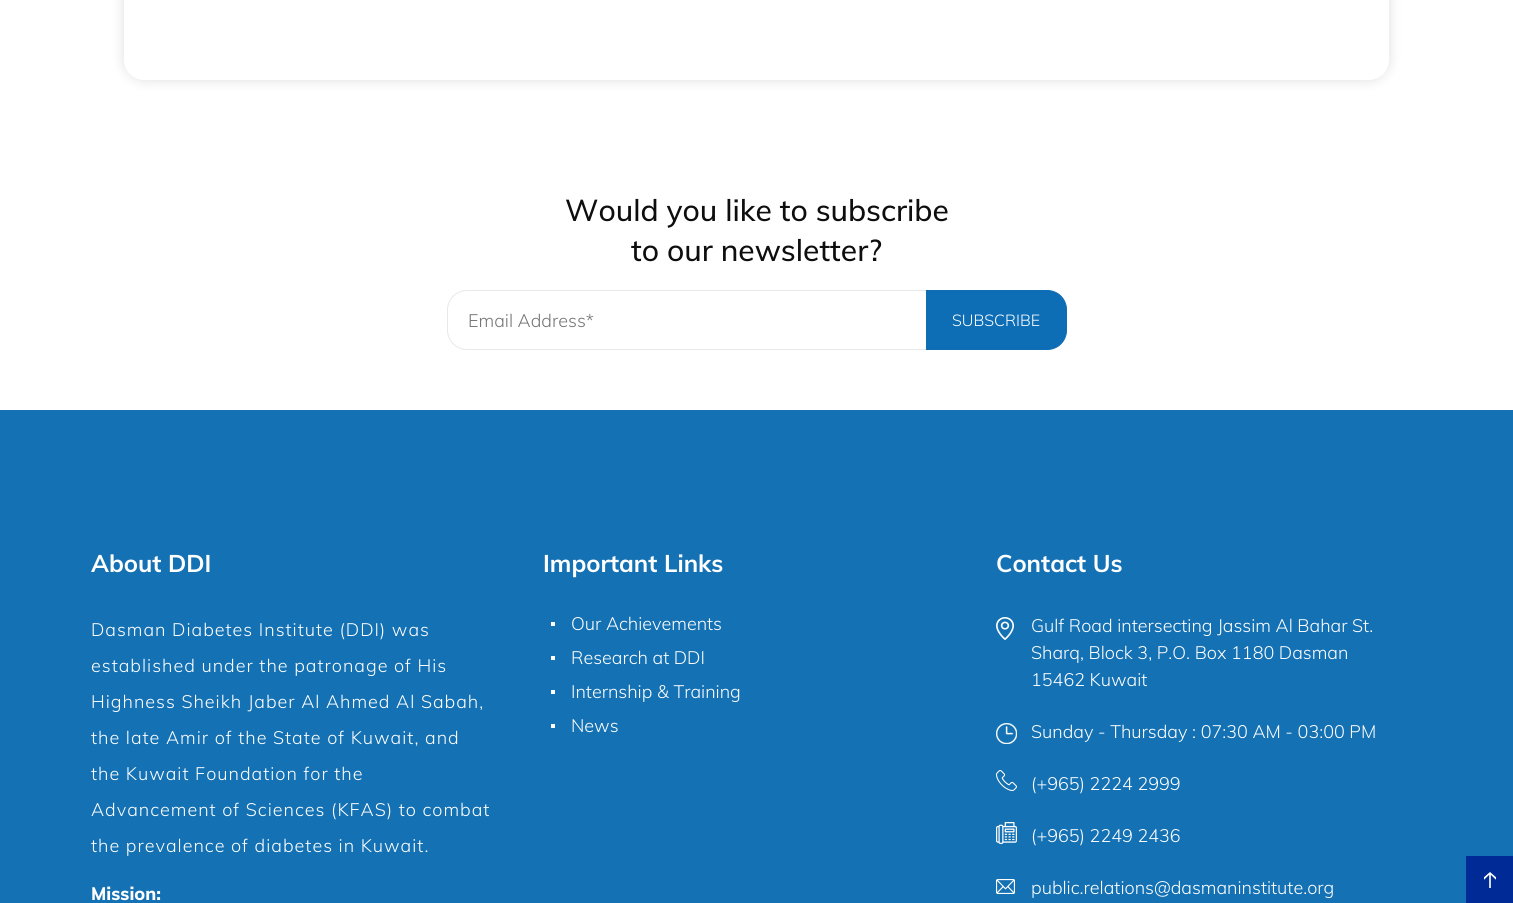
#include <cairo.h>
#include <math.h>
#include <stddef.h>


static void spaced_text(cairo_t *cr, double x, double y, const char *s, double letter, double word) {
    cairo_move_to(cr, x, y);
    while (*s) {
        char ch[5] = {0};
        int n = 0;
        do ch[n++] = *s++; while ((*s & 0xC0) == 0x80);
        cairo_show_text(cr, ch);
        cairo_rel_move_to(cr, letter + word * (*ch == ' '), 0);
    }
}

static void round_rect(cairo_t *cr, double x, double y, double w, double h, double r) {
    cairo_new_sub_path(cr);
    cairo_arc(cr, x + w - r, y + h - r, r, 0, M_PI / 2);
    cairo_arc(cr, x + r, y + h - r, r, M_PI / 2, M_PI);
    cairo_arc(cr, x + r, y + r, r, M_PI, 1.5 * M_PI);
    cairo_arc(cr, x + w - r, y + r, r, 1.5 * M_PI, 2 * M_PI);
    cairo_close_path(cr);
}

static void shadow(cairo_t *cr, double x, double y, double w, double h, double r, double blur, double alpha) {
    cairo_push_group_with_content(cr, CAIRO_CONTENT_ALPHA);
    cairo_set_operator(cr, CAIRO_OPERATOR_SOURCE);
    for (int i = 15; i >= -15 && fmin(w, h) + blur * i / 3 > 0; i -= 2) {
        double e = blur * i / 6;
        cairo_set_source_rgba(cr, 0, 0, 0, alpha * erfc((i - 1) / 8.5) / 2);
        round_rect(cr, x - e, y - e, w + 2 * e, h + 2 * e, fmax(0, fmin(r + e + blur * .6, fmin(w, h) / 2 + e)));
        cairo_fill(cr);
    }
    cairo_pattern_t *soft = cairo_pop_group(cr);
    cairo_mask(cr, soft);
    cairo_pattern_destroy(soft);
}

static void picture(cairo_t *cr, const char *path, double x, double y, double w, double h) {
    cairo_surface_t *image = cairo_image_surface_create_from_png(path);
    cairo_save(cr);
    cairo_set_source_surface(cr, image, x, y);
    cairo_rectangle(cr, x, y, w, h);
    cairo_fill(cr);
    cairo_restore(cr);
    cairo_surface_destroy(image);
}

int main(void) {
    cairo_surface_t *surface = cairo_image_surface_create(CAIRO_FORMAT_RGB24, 1513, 903);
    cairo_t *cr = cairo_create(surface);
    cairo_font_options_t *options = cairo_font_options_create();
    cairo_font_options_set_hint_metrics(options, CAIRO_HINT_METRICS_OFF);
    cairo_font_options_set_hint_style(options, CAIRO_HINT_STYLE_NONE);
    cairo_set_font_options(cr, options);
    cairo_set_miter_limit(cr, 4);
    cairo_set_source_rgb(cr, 1, 1, 1);
    cairo_paint(cr);
    cairo_set_source_rgb(cr, 0, 0, 0);
    shadow(cr, 125, -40, 1263, 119, 19, 7, 0.15);
    cairo_set_source_rgb(cr, 1, 1, 1);
    round_rect(cr, 124, -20, 1265, 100, 20);
    cairo_fill(cr);
    cairo_select_font_face(cr, "Muli Medium", CAIRO_FONT_SLANT_NORMAL, CAIRO_FONT_WEIGHT_NORMAL);
    cairo_set_font_size(cr, 30);
    cairo_set_source_rgb(cr, 0.055, 0.055, 0.055);
    cairo_move_to(cr, 565, 221);
    cairo_show_text(cr, "Would you like to subscribe");
    cairo_move_to(cr, 631, 261);
    cairo_show_text(cr, "to our newsletter?");
    round_rect(cr, 447.5, 290.5, 619, 59, 19.5);
    cairo_set_source_rgb(cr, 0.91, 0.91, 0.91);
    cairo_set_line_width(cr, 1);
    cairo_stroke(cr);
    cairo_select_font_face(cr, "Muli Light", CAIRO_FONT_SLANT_NORMAL, CAIRO_FONT_WEIGHT_NORMAL);
    cairo_set_font_size(cr, 18);
    cairo_set_source_rgb(cr, 0.459, 0.459, 0.459);
    cairo_move_to(cr, 468, 327);
    cairo_show_text(cr, "Email Address*");
    cairo_set_source_rgb(cr, 0.051, 0.431, 0.714);
    cairo_new_path(cr);
    cairo_move_to(cr, 926.5, 290.5);
    cairo_line_to(cr, 1047, 290.5);
    cairo_curve_to(cr, 1058, 290.5, 1066.5, 299, 1066.5, 310);
    cairo_line_to(cr, 1066.5, 330);
    cairo_curve_to(cr, 1066.5, 341, 1058, 349.5, 1047, 349.5);
    cairo_line_to(cr, 926.5, 349.5);
    cairo_close_path(cr);
    cairo_fill_preserve(cr);
    cairo_stroke(cr);
    cairo_set_font_size(cr, 16);
    cairo_set_source_rgb(cr, 1, 1, 1);
    cairo_move_to(cr, 952, 326);
    cairo_show_text(cr, "SUBSCRIBE");
    cairo_set_source_rgb(cr, 0.082, 0.443, 0.706);
    cairo_rectangle(cr, 0, 410, 1513, 493);
    cairo_fill(cr);
    cairo_select_font_face(cr, "Muli", CAIRO_FONT_SLANT_NORMAL, CAIRO_FONT_WEIGHT_BOLD);
    cairo_set_font_size(cr, 24);
    cairo_set_source_rgb(cr, 1, 1, 1);
    cairo_move_to(cr, 91, 572);
    cairo_show_text(cr, "About DDI");
    cairo_select_font_face(cr, "Muli Light", CAIRO_FONT_SLANT_NORMAL, CAIRO_FONT_WEIGHT_NORMAL);
    cairo_set_font_size(cr, 18);
    spaced_text(cr, 91, 636, "Dasman Diabetes Institute (DDI) was", 1, 0);
    spaced_text(cr, 91, 672, "established under the patronage of His", 1, 0);
    spaced_text(cr, 91, 708, "Highness Sheikh Jaber Al Ahmed Al Sabah,", 1, 0);
    spaced_text(cr, 91, 744, "the late Amir of the State of Kuwait, and", 1, 0);
    spaced_text(cr, 91, 780, "the Kuwait Foundation for the", 1, 0);
    spaced_text(cr, 91, 816, "Advancement of Sciences (KFAS) to combat", 1, 0);
    spaced_text(cr, 91, 852, "the prevalence of diabetes in Kuwait.", 1, 0);
    cairo_select_font_face(cr, "Muli ExtraBold", CAIRO_FONT_SLANT_NORMAL, CAIRO_FONT_WEIGHT_NORMAL);
    cairo_move_to(cr, 91, 900);
    cairo_show_text(cr, "Mission:");
    cairo_select_font_face(cr, "Muli", CAIRO_FONT_SLANT_NORMAL, CAIRO_FONT_WEIGHT_BOLD);
    cairo_set_font_size(cr, 24);
    cairo_move_to(cr, 543, 572);
    cairo_show_text(cr, "Important Links");
    cairo_rectangle(cr, 551, 622, 4, 4);
    cairo_fill(cr);
    cairo_select_font_face(cr, "Muli Light", CAIRO_FONT_SLANT_NORMAL, CAIRO_FONT_WEIGHT_NORMAL);
    cairo_set_font_size(cr, 18);
    cairo_move_to(cr, 571, 630);
    cairo_show_text(cr, "Our Achievements");
    cairo_rectangle(cr, 551, 656, 4, 4);
    cairo_fill(cr);
    cairo_move_to(cr, 571, 664);
    cairo_show_text(cr, "Research at DDI");
    cairo_rectangle(cr, 551, 690, 4, 4);
    cairo_fill(cr);
    cairo_move_to(cr, 571, 698);
    cairo_show_text(cr, "Internship & Training");
    cairo_rectangle(cr, 551, 724, 4, 4);
    cairo_fill(cr);
    cairo_move_to(cr, 571, 732);
    cairo_show_text(cr, "News");
    cairo_select_font_face(cr, "Muli", CAIRO_FONT_SLANT_NORMAL, CAIRO_FONT_WEIGHT_BOLD);
    cairo_set_font_size(cr, 24);
    cairo_move_to(cr, 996, 572);
    cairo_show_text(cr, "Contact Us");
    picture(cr, "img1.png", 996, 617, 18, 23);
    cairo_select_font_face(cr, "Muli Light", CAIRO_FONT_SLANT_NORMAL, CAIRO_FONT_WEIGHT_NORMAL);
    cairo_set_font_size(cr, 18);
    cairo_move_to(cr, 1031, 632);
    cairo_show_text(cr, "Gulf Road intersecting Jassim Al Bahar St.");
    cairo_move_to(cr, 1031, 659);
    cairo_show_text(cr, "Sharq, Block 3, P.O. Box 1180 Dasman");
    cairo_move_to(cr, 1031, 686);
    cairo_show_text(cr, "15462 Kuwait");
    picture(cr, "img2.png", 996, 723, 21, 21);
    cairo_move_to(cr, 1031, 738);
    cairo_show_text(cr, "Sunday - Thursday : 07:30 AM - 03:00 PM");
    picture(cr, "img3.png", 996, 770, 21, 21);
    cairo_move_to(cr, 1031, 790);
    cairo_show_text(cr, "(+965) 2224 2999");
    picture(cr, "img4.png", 996, 822, 21, 22);
    cairo_move_to(cr, 1031, 842);
    cairo_show_text(cr, "(+965) 2249 2436");
    picture(cr, "img5.png", 996, 879, 19, 15);
    cairo_move_to(cr, 1031, 894);
    cairo_show_text(cr, "public.relations@dasmaninstitute.org");
    picture(cr, "img6.png", 1466, 856, 47, 47);
    cairo_surface_write_to_png(surface, "page.png");
    cairo_font_options_destroy(options);
    cairo_destroy(cr);
    cairo_surface_destroy(surface);
    return 0;
}
